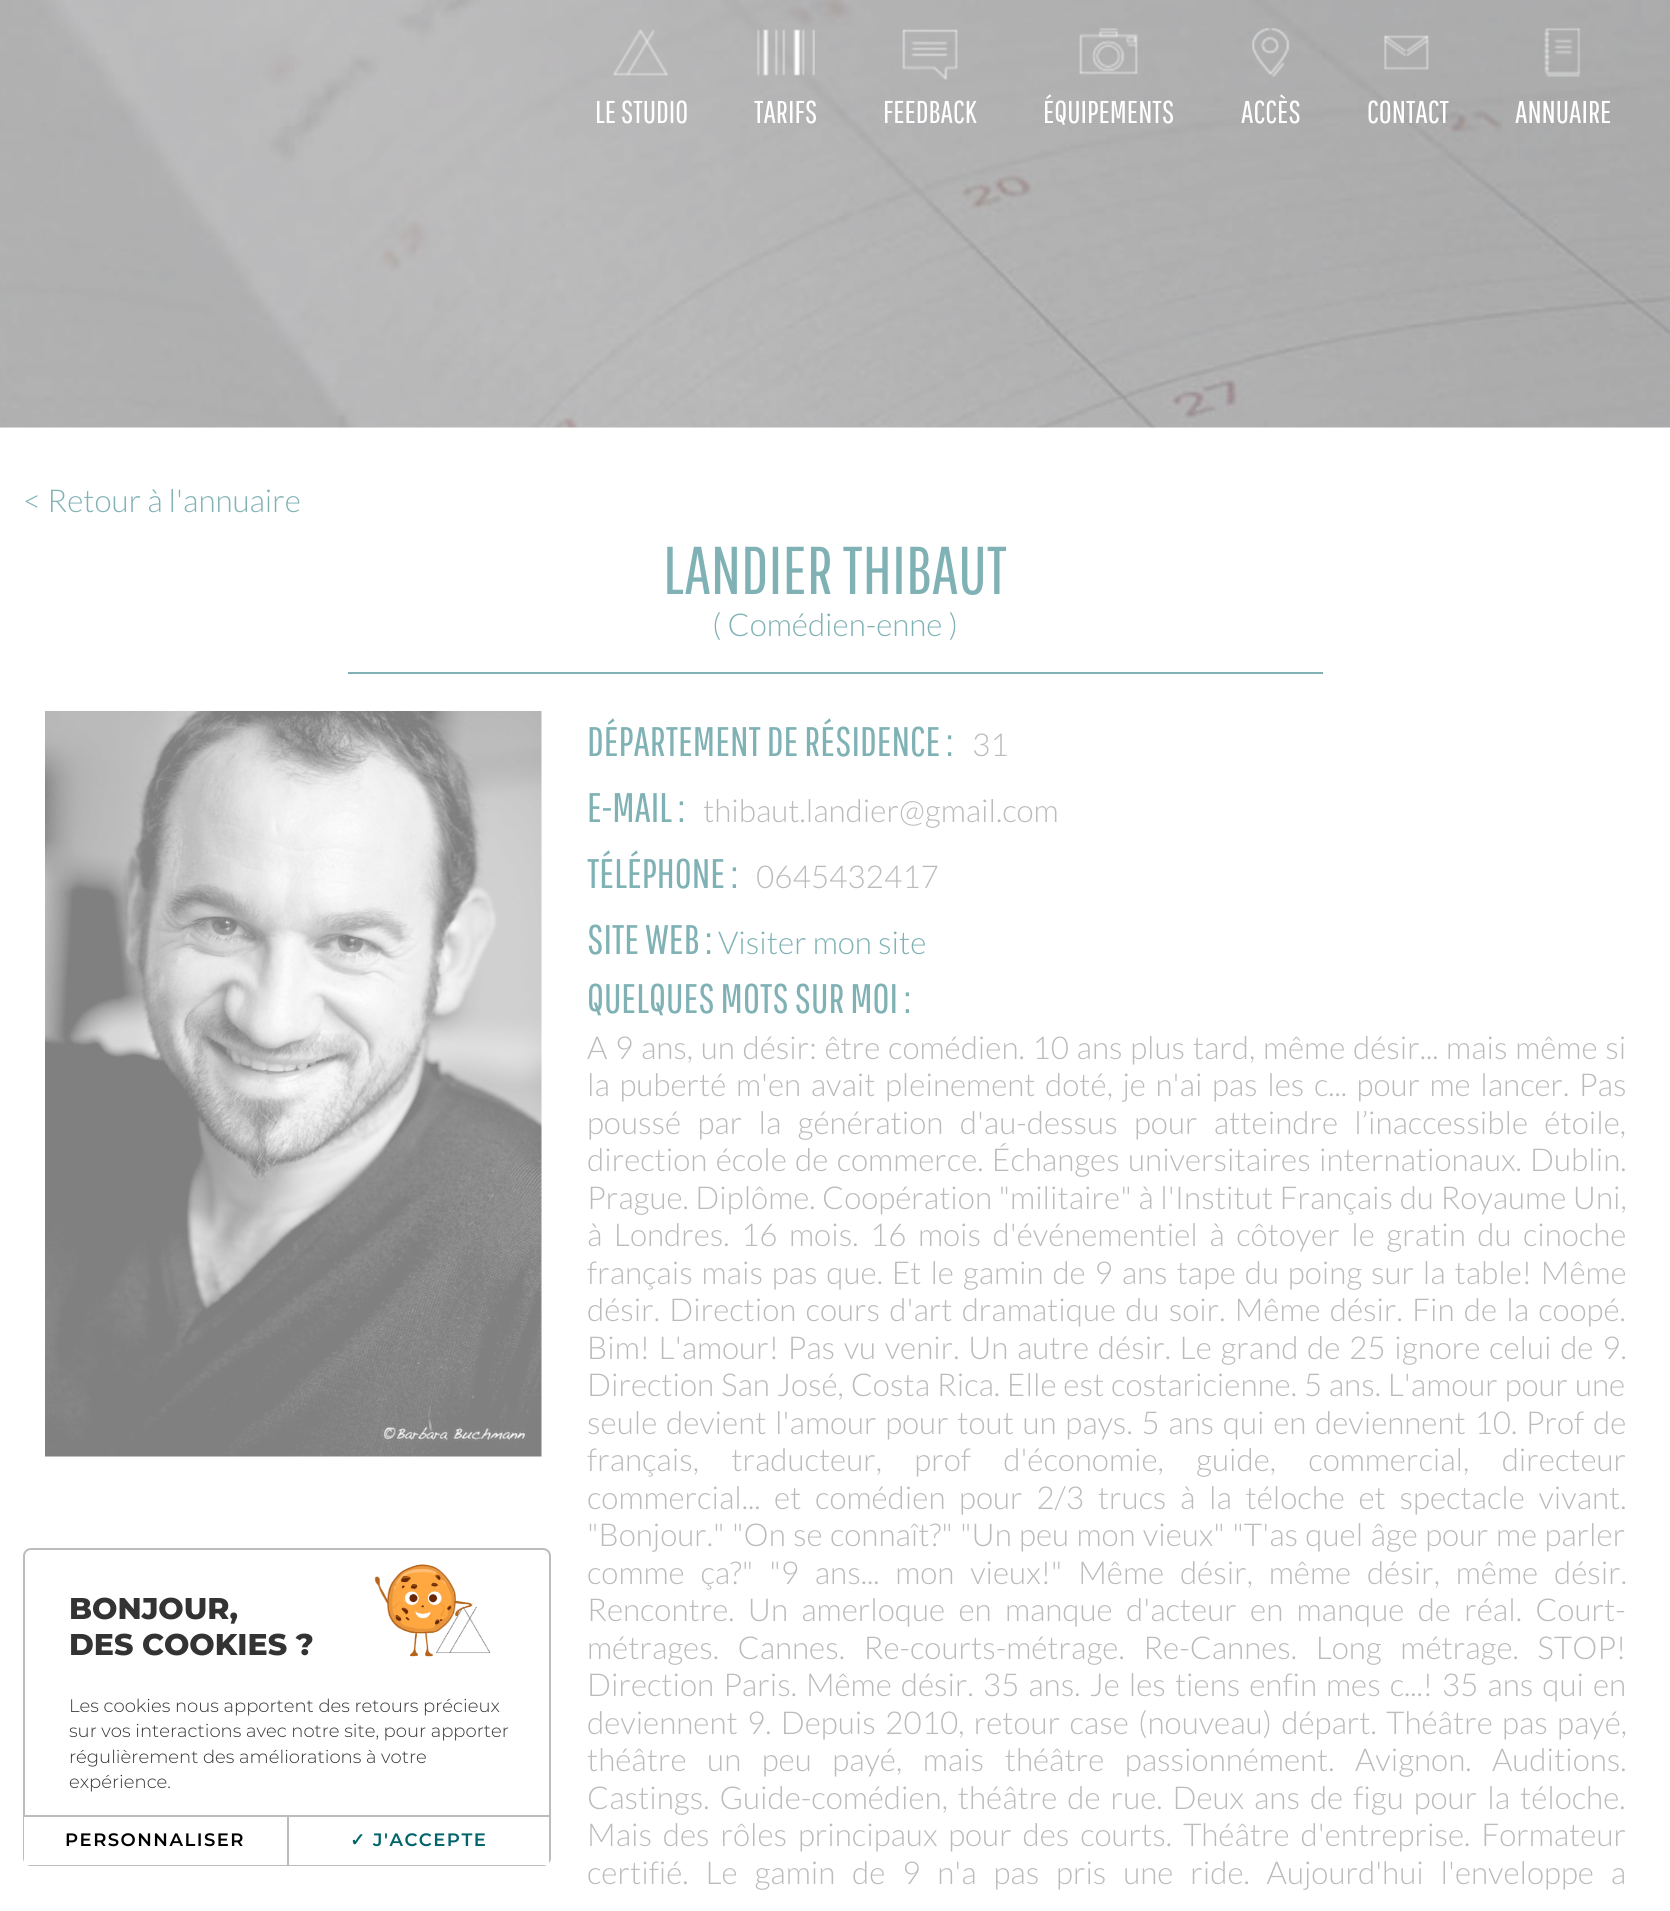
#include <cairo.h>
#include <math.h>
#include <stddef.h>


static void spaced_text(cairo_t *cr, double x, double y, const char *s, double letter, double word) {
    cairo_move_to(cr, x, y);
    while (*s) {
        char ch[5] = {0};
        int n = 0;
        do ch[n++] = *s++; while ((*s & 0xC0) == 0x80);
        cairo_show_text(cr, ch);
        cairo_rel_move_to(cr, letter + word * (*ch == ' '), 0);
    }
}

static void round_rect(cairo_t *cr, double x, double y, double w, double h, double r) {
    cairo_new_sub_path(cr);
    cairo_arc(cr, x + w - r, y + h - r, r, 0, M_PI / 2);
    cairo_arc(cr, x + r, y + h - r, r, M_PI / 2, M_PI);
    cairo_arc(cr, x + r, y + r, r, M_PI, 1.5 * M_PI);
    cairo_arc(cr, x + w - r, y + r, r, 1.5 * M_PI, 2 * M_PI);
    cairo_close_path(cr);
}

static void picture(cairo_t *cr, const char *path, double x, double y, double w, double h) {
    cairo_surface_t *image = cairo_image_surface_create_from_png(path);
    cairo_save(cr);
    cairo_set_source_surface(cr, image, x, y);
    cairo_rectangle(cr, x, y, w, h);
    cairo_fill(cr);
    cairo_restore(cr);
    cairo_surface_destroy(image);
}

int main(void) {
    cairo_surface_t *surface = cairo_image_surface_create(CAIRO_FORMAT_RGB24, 1670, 1911);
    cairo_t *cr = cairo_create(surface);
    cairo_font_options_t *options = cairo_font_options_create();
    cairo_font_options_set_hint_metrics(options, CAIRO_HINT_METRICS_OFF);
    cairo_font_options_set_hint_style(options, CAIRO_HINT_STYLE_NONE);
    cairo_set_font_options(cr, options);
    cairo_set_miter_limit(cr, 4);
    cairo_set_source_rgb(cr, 1, 1, 1);
    cairo_paint(cr);
    picture(cr, "img8.png", 0, 0, 1670, 428);
    picture(cr, "img1.png", 613, 29, 55, 47);
    cairo_select_font_face(cr, "Pathway Gothic One", CAIRO_FONT_SLANT_NORMAL, CAIRO_FONT_WEIGHT_NORMAL);
    cairo_set_font_size(cr, 31.5);
    cairo_set_source_rgb(cr, 1, 1, 1);
    cairo_move_to(cr, 595, 123);
    cairo_show_text(cr, "LE STUDIO");
    picture(cr, "img2.png", 757, 29, 58, 47);
    cairo_move_to(cr, 754, 123);
    cairo_show_text(cr, "TARIFS");
    picture(cr, "img3.png", 902, 29, 56, 51);
    cairo_move_to(cr, 883, 123);
    cairo_show_text(cr, "FEEDBACK");
    picture(cr, "img4.png", 1079, 28, 59, 47);
    cairo_move_to(cr, 1043, 123);
    cairo_show_text(cr, "ÉQUIPEMENTS");
    picture(cr, "img5.png", 1252, 28, 38, 49);
    cairo_move_to(cr, 1241, 123);
    cairo_show_text(cr, "ACCÈS");
    picture(cr, "img6.png", 1384, 35, 45, 35);
    cairo_move_to(cr, 1367, 123);
    cairo_show_text(cr, "CONTACT");
    picture(cr, "img7.png", 1544, 28, 37, 49);
    cairo_move_to(cr, 1515, 123);
    cairo_show_text(cr, "ANNUAIRE");
    cairo_select_font_face(cr, "Lato Light", CAIRO_FONT_SLANT_NORMAL, CAIRO_FONT_WEIGHT_NORMAL);
    cairo_set_source_rgb(cr, 0.502, 0.698, 0.71);
    cairo_move_to(cr, 23, 512);
    cairo_show_text(cr, "< Retour à l'annuaire");
    cairo_rectangle(cr, 348, 672, 975, 2);
    cairo_fill(cr);
    cairo_select_font_face(cr, "Pathway Gothic One", CAIRO_FONT_SLANT_NORMAL, CAIRO_FONT_WEIGHT_NORMAL);
    cairo_set_font_size(cr, 67.5);
    cairo_move_to(cr, 663, 594);
    cairo_show_text(cr, "LANDIER THIBAUT");
    cairo_select_font_face(cr, "Lato Light", CAIRO_FONT_SLANT_NORMAL, CAIRO_FONT_WEIGHT_NORMAL);
    cairo_set_font_size(cr, 31.5);
    cairo_move_to(cr, 712, 636);
    cairo_show_text(cr, "( Comédien-enne )");
    picture(cr, "img9.png", 45, 711, 497, 746);
    cairo_select_font_face(cr, "Pathway Gothic One", CAIRO_FONT_SLANT_NORMAL, CAIRO_FONT_WEIGHT_NORMAL);
    cairo_set_font_size(cr, 41.25);
    cairo_move_to(cr, 587, 756);
    cairo_show_text(cr, "DÉPARTEMENT DE RÉSIDENCE :");
    cairo_select_font_face(cr, "Lato Light", CAIRO_FONT_SLANT_NORMAL, CAIRO_FONT_WEIGHT_NORMAL);
    cairo_set_font_size(cr, 31.5);
    cairo_set_source_rgb(cr, 0.733, 0.733, 0.733);
    cairo_move_to(cr, 972, 756);
    cairo_show_text(cr, "31");
    cairo_select_font_face(cr, "Pathway Gothic One", CAIRO_FONT_SLANT_NORMAL, CAIRO_FONT_WEIGHT_NORMAL);
    cairo_set_font_size(cr, 41.25);
    cairo_set_source_rgb(cr, 0.502, 0.698, 0.71);
    cairo_move_to(cr, 587, 822);
    cairo_show_text(cr, "E-MAIL :");
    cairo_select_font_face(cr, "Lato Light", CAIRO_FONT_SLANT_NORMAL, CAIRO_FONT_WEIGHT_NORMAL);
    cairo_set_font_size(cr, 31.5);
    cairo_set_source_rgb(cr, 0.733, 0.733, 0.733);
    cairo_move_to(cr, 703, 822);
    cairo_show_text(cr, "thibaut.landier@gmail.com");
    cairo_select_font_face(cr, "Pathway Gothic One", CAIRO_FONT_SLANT_NORMAL, CAIRO_FONT_WEIGHT_NORMAL);
    cairo_set_font_size(cr, 41.25);
    cairo_set_source_rgb(cr, 0.502, 0.698, 0.71);
    cairo_move_to(cr, 587, 888);
    cairo_show_text(cr, "TÉLÉPHONE :");
    cairo_select_font_face(cr, "Lato Light", CAIRO_FONT_SLANT_NORMAL, CAIRO_FONT_WEIGHT_NORMAL);
    cairo_set_font_size(cr, 31.5);
    cairo_set_source_rgb(cr, 0.733, 0.733, 0.733);
    cairo_move_to(cr, 756, 888);
    cairo_show_text(cr, "0645432417");
    cairo_select_font_face(cr, "Pathway Gothic One", CAIRO_FONT_SLANT_NORMAL, CAIRO_FONT_WEIGHT_NORMAL);
    cairo_set_font_size(cr, 41.25);
    cairo_set_source_rgb(cr, 0.502, 0.698, 0.71);
    cairo_move_to(cr, 587, 954);
    cairo_show_text(cr, "SITE WEB :");
    cairo_select_font_face(cr, "Lato Light", CAIRO_FONT_SLANT_NORMAL, CAIRO_FONT_WEIGHT_NORMAL);
    cairo_set_font_size(cr, 31.5);
    cairo_move_to(cr, 718, 954);
    cairo_show_text(cr, "Visiter mon site");
    cairo_select_font_face(cr, "Pathway Gothic One", CAIRO_FONT_SLANT_NORMAL, CAIRO_FONT_WEIGHT_NORMAL);
    cairo_set_font_size(cr, 41.25);
    cairo_move_to(cr, 587, 1013);
    cairo_show_text(cr, "QUELQUES MOTS SUR MOI :");
    cairo_select_font_face(cr, "Lato Light", CAIRO_FONT_SLANT_NORMAL, CAIRO_FONT_WEIGHT_NORMAL);
    cairo_set_font_size(cr, 31.5);
    cairo_set_source_rgb(cr, 0.733, 0.733, 0.733);
    spaced_text(cr, 587, 1059, "A 9 ans, un désir: être comédien. 10 ans plus tard, même désir... mais même si", 0, 1.6);
    spaced_text(cr, 587, 1096, "la puberté m'en avait pleinement doté, je n'ai pas les c... pour me lancer. Pas", 0, 3.5);
    spaced_text(cr, 587, 1134, "poussé par la génération d'au-dessus pour atteindre l’inaccessible étoile,", 0, 10.25);
    spaced_text(cr, 587, 1171, "direction école de commerce. Échanges universitaires internationaux. Dublin.", 0, 2.25);
    spaced_text(cr, 587, 1209, "Prague. Diplôme. Coopération \"militaire\" à l'Institut Français du Royaume Uni,", 0, 0.5);
    spaced_text(cr, 587, 1246, "à Londres. 16 mois. 16 mois d'événementiel à côtoyer le gratin du cinoche", 0, 5.4);
    spaced_text(cr, 587, 1284, "français mais pas que. Et le gamin de 9 ans tape du poing sur la table! Même", 0, 2.75);
    spaced_text(cr, 587, 1321, "désir. Direction cours d'art dramatique du soir. Même désir. Fin de la coopé.", 0, 3.1);
    spaced_text(cr, 587, 1359, "Bim! L'amour! Pas vu venir. Un autre désir. Le grand de 25 ignore celui de 9.", 0, 2.6);
    spaced_text(cr, 587, 1396, "Direction San José, Costa Rica. Elle est costaricienne. 5 ans. L'amour pour une", 0, 0.75);
    spaced_text(cr, 587, 1434, "seule devient l'amour pour tout un pays. 5 ans qui en deviennent 10. Prof de", 0, 2.6);
    spaced_text(cr, 587, 1471, "français, traducteur, prof d'économie, guide, commercial, directeur", 0, 26.25);
    spaced_text(cr, 587, 1509, "commercial... et comédien pour 2/3 trucs à la téloche et spectacle vivant.", 0, 7.6);
    spaced_text(cr, 587, 1546, "\"Bonjour.\" \"On se connaît?\" \"Un peu mon vieux\" \"T'as quel âge pour me parler", 0, 1.25);
    spaced_text(cr, 587, 1584, "comme ça?\" \"9 ans... mon vieux!\" Même désir, même désir, même désir.", 0, 9.75);
    spaced_text(cr, 587, 1621, "Rencontre. Un amerloque en manque d'acteur en manque de réal. Court-", 0, 7.25);
    spaced_text(cr, 587, 1659, "métrages. Cannes. Re-courts-métrage. Re-Cannes. Long métrage. STOP!", 0, 12.5);
    spaced_text(cr, 587, 1696, "Direction Paris. Même désir. 35 ans. Je les tiens enfin mes c...! 35 ans qui en", 0, 2.9);
    spaced_text(cr, 587, 1734, "deviennent 9. Depuis 2010, retour case (nouveau) départ. Théâtre pas payé,", 0, 3.25);
    spaced_text(cr, 587, 1771, "théâtre un peu payé, mais théâtre passionnément. Avignon. Auditions.", 0, 14.5);
    spaced_text(cr, 587, 1809, "Castings. Guide-comédien, théâtre de rue. Deux ans de figu pour la téloche.", 0, 3.9);
    spaced_text(cr, 587, 1846, "Mais des rôles principaux pour des courts. Théâtre d'entreprise. Formateur", 0, 4.75);
    spaced_text(cr, 587, 1884, "certifié. Le gamin de 9 n'a pas pris une ride. Aujourd'hui l'enveloppe a", 0, 10.75);
    round_rect(cr, 24, 1549, 526, 316, 7);
    cairo_set_source_rgb(cr, 0.737, 0.737, 0.737);
    cairo_stroke(cr);
    picture(cr, "img10.png", 374, 1564, 117, 93);
    cairo_select_font_face(cr, "Montserrat ExtraBold", CAIRO_FONT_SLANT_NORMAL, CAIRO_FONT_WEIGHT_NORMAL);
    cairo_set_font_size(cr, 30);
    cairo_set_source_rgb(cr, 0.2, 0.2, 0.2);
    cairo_move_to(cr, 69, 1619);
    cairo_show_text(cr, "BONJOUR,");
    cairo_move_to(cr, 69, 1655);
    cairo_show_text(cr, "DES COOKIES ?");
    cairo_select_font_face(cr, "Montserrat Light", CAIRO_FONT_SLANT_NORMAL, CAIRO_FONT_WEIGHT_NORMAL);
    cairo_set_font_size(cr, 18);
    cairo_move_to(cr, 69, 1712);
    cairo_show_text(cr, "Les cookies nous apportent des retours précieux");
    cairo_move_to(cr, 69, 1737);
    cairo_show_text(cr, "sur vos interactions avec notre site, pour apporter");
    cairo_move_to(cr, 69, 1763);
    cairo_show_text(cr, "régulièrement des améliorations à votre");
    cairo_move_to(cr, 69, 1788);
    cairo_show_text(cr, "expérience.");
    cairo_set_source_rgb(cr, 1, 1, 1);
    cairo_rectangle(cr, 24, 1817, 263, 48);
    cairo_fill(cr);
    cairo_set_source_rgb(cr, 0.737, 0.737, 0.737);
    cairo_rectangle(cr, 24, 1815, 525, 2);
    cairo_fill(cr);
    cairo_select_font_face(cr, "Montserrat SemiBold", CAIRO_FONT_SLANT_NORMAL, CAIRO_FONT_WEIGHT_NORMAL);
    cairo_set_source_rgb(cr, 0, 0, 0);
    spaced_text(cr, 65, 1846, "PERSONNALISER", 1.5, 0);
    cairo_set_source_rgb(cr, 1, 1, 1);
    cairo_rectangle(cr, 289, 1858, 260, 7);
    cairo_fill(cr);
    cairo_set_source_rgb(cr, 0.737, 0.737, 0.737);
    cairo_rectangle(cr, 287, 1815, 2, 50);
    cairo_fill(cr);
    cairo_select_font_face(cr, "DejaVu Sans", CAIRO_FONT_SLANT_NORMAL, CAIRO_FONT_WEIGHT_BOLD);
    cairo_set_source_rgb(cr, 0.004, 0.392, 0.42);
    spaced_text(cr, 350, 1846, "✓", 1.5, 0);
    cairo_select_font_face(cr, "Montserrat SemiBold", CAIRO_FONT_SLANT_NORMAL, CAIRO_FONT_WEIGHT_NORMAL);
    spaced_text(cr, 373, 1846, "J'ACCEPTE", 1.5, 0);
    cairo_surface_write_to_png(surface, "page.png");
    cairo_font_options_destroy(options);
    cairo_destroy(cr);
    cairo_surface_destroy(surface);
    return 0;
}
